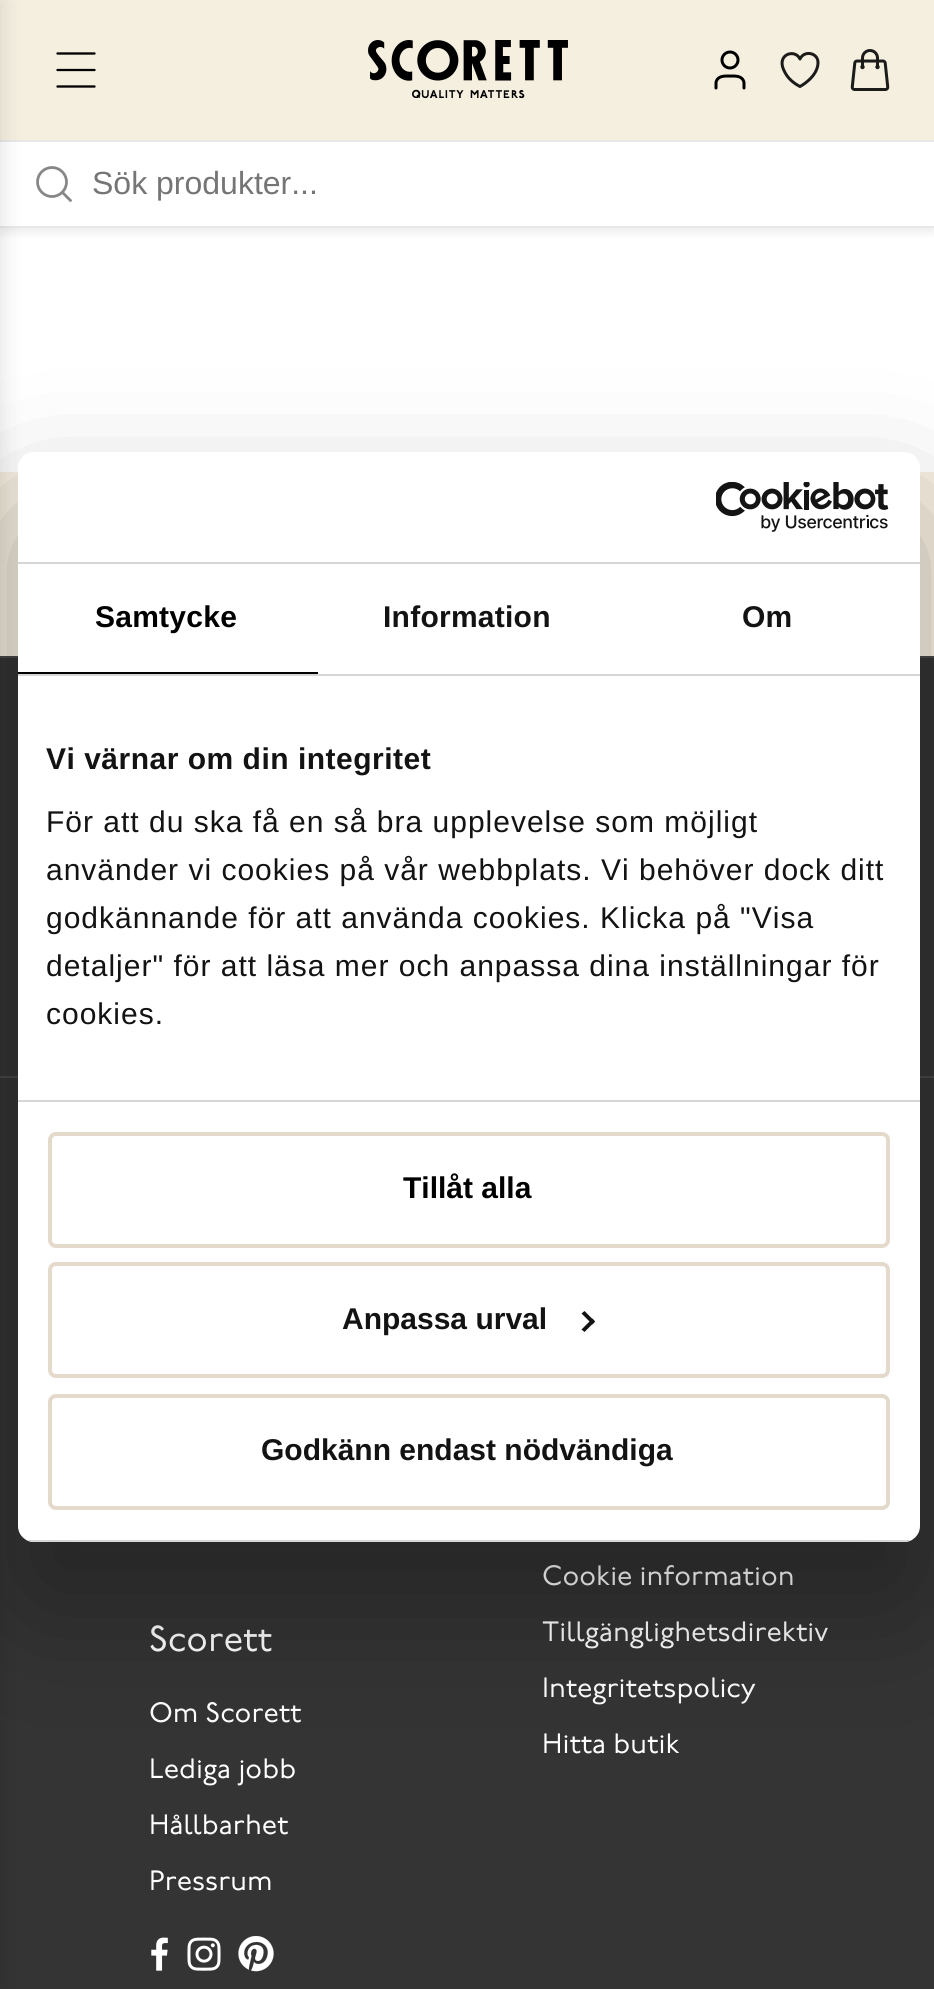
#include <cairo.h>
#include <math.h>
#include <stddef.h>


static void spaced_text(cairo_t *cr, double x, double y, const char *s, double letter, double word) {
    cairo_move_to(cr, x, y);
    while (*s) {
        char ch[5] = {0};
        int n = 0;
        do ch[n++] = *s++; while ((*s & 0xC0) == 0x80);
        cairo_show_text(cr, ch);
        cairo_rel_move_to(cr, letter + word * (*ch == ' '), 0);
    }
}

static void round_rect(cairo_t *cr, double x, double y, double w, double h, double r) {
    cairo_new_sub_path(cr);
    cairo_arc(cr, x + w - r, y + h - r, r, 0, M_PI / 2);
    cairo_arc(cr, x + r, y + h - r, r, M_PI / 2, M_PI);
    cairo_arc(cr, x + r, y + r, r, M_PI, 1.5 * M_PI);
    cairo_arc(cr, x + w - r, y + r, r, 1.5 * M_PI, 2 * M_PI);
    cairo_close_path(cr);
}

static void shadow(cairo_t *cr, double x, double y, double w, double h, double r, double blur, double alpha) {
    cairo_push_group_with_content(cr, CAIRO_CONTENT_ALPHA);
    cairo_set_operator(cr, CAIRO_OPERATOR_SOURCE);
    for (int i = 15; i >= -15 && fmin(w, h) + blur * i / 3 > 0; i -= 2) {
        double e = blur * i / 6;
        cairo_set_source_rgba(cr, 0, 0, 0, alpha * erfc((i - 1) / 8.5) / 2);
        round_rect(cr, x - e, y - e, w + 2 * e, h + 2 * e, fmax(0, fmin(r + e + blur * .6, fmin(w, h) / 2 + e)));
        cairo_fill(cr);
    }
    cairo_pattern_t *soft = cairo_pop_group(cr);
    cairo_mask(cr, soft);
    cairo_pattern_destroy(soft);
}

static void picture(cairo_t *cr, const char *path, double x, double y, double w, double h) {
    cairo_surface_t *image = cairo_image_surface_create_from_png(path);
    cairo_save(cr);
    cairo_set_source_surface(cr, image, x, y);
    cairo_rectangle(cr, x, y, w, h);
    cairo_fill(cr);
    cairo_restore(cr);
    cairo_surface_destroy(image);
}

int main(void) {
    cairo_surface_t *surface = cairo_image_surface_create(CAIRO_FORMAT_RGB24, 934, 1989);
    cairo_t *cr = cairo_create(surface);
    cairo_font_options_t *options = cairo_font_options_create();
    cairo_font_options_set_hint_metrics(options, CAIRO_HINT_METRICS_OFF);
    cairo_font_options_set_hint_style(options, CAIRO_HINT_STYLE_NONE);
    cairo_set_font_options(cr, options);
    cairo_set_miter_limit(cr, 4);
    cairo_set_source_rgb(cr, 1, 1, 1);
    cairo_paint(cr);
    cairo_set_source_rgb(cr, 0, 0, 0);
    shadow(cr, 0, 144, 934, 88, 0, 5, 0.08);
    cairo_set_source_rgb(cr, 0.957, 0.937, 0.875);
    cairo_rectangle(cr, 0, 0, 934, 140);
    cairo_fill(cr);
    cairo_new_path(cr);
    cairo_move_to(cr, 57.5, 53.5);
    cairo_line_to(cr, 94.5, 53.5);
    cairo_move_to(cr, 57.5, 70);
    cairo_line_to(cr, 94.5, 70);
    cairo_move_to(cr, 57.5, 86.5);
    cairo_line_to(cr, 94.5, 86.5);
    cairo_set_source_rgb(cr, 0, 0, 0);
    cairo_set_line_width(cr, 2.3);
    cairo_set_line_cap(cr, CAIRO_LINE_CAP_ROUND);
    cairo_set_line_join(cr, CAIRO_LINE_JOIN_ROUND);
    cairo_stroke(cr);
    picture(cr, "img1.png", 368, 40, 200, 58);
    cairo_new_path(cr);
    cairo_move_to(cr, 744, 88);
    cairo_line_to(cr, 744, 82.5);
    cairo_curve_to(cr, 742.5, 75.5, 735.5, 76, 730, 76);
    cairo_curve_to(cr, 724.5, 76, 717.5, 75.5, 716, 82.5);
    cairo_line_to(cr, 716, 88);
    cairo_set_line_width(cr, 3);
    cairo_stroke(cr);
    cairo_arc(cr, 730, 60, 8, 0, 2 * M_PI);
    cairo_set_line_cap(cr, CAIRO_LINE_CAP_BUTT);
    cairo_set_line_join(cr, CAIRO_LINE_JOIN_MITER);
    cairo_stroke(cr);
    cairo_new_path(cr);
    cairo_move_to(cr, 818, 62.5);
    cairo_curve_to(cr, 818, 52.5, 804, 50, 800, 59);
    cairo_curve_to(cr, 795, 48, 774.5, 54.5, 785, 72.5);
    cairo_curve_to(cr, 788, 78.5, 794, 83.5, 800, 86.5);
    cairo_curve_to(cr, 800, 86.5, 818, 77, 818, 62.5);
    cairo_close_path(cr);
    cairo_set_source_rgb(cr, 0.106, 0.106, 0.102);
    cairo_set_line_cap(cr, CAIRO_LINE_CAP_ROUND);
    cairo_set_line_join(cr, CAIRO_LINE_JOIN_ROUND);
    cairo_stroke(cr);
    picture(cr, "img2.png", 850, 49, 40, 42);
    cairo_set_source_rgb(cr, 1, 1, 1);
    cairo_rectangle(cr, 0, 142, 934, 84);
    cairo_fill(cr);
    cairo_set_source_rgb(cr, 0.91, 0.91, 0.91);
    cairo_rectangle(cr, 0, 140, 934, 2);
    cairo_fill(cr);
    cairo_rectangle(cr, 0, 226, 934, 2);
    cairo_fill(cr);
    cairo_set_source_rgb(cr, 0.965, 0.937, 0.882);
    cairo_rectangle(cr, 0, 472, 934, 184);
    cairo_fill(cr);
    cairo_set_source_rgb(cr, 0.204, 0.204, 0.204);
    cairo_rectangle(cr, 0, 658, 934, 1331);
    cairo_fill(cr);
    cairo_set_source_rgb(cr, 0.278, 0.278, 0.278);
    cairo_rectangle(cr, 0, 656, 934, 2);
    cairo_fill(cr);
    cairo_rectangle(cr, 0, 1076, 934, 2);
    cairo_fill(cr);
    cairo_set_source_rgb(cr, 0, 0, 0);
    shadow(cr, -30, 0, 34, 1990, 0, 10, 0.1);
    cairo_new_path(cr);
    cairo_move_to(cr, 70.5, 200.5);
    cairo_line_to(cr, 62.5, 192.5);
    cairo_set_source_rgb(cr, 0.529, 0.529, 0.529);
    cairo_set_line_width(cr, 2.8);
    cairo_stroke(cr);
    cairo_arc(cr, 52, 182, 14.5, 0, 2 * M_PI);
    cairo_set_line_cap(cr, CAIRO_LINE_CAP_BUTT);
    cairo_set_line_join(cr, CAIRO_LINE_JOIN_MITER);
    cairo_stroke(cr);
    cairo_select_font_face(cr, "Liberation Sans", CAIRO_FONT_SLANT_NORMAL, CAIRO_FONT_WEIGHT_NORMAL);
    cairo_set_font_size(cr, 32);
    cairo_set_source_rgb(cr, 0.459, 0.459, 0.459);
    cairo_move_to(cr, 92, 194);
    cairo_show_text(cr, "Sök produkter...");
    cairo_select_font_face(cr, "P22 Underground", CAIRO_FONT_SLANT_NORMAL, CAIRO_FONT_WEIGHT_NORMAL);
    cairo_set_font_size(cr, 36);
    cairo_set_source_rgb(cr, 1, 1, 1);
    cairo_move_to(cr, 149, 1651);
    cairo_show_text(cr, "Scorett");
    cairo_set_font_size(cr, 28);
    cairo_move_to(cr, 149, 1722);
    cairo_show_text(cr, "Om Scorett");
    cairo_move_to(cr, 149, 1778);
    cairo_show_text(cr, "Lediga jobb");
    cairo_move_to(cr, 149, 1834);
    cairo_show_text(cr, "Hållbarhet");
    cairo_move_to(cr, 149, 1890);
    cairo_show_text(cr, "Pressrum");
    picture(cr, "img3.png", 151, 1937, 17, 34);
    picture(cr, "img4.png", 187, 1937, 34, 34);
    picture(cr, "img5.png", 238, 1936, 36, 36);
    cairo_move_to(cr, 542, 1585);
    cairo_show_text(cr, "Cookie information");
    cairo_move_to(cr, 542, 1641);
    cairo_show_text(cr, "Tillgänglighetsdirektiv");
    cairo_move_to(cr, 542, 1697);
    cairo_show_text(cr, "Integritetspolicy");
    cairo_move_to(cr, 542, 1753);
    cairo_show_text(cr, "Hitta butik");
    cairo_set_source_rgb(cr, 0, 0, 0);
    shadow(cr, 18, 516, 902, 1090, 16, 68, 0.3);
    cairo_set_source_rgb(cr, 1, 1, 1);
    round_rect(cr, 18, 452, 902, 1090, 16);
    cairo_fill(cr);
    cairo_set_source_rgb(cr, 0.839, 0.839, 0.839);
    cairo_rectangle(cr, 18, 562, 902, 2);
    cairo_fill(cr);
    picture(cr, "img6.png", 716, 482, 173, 50);
    cairo_rectangle(cr, 18, 674, 902, 2);
    cairo_fill(cr);
    cairo_set_source_rgb(cr, 0, 0, 0);
    cairo_rectangle(cr, 18, 672, 300, 2);
    cairo_fill(cr);
    cairo_select_font_face(cr, "Liberation Sans", CAIRO_FONT_SLANT_NORMAL, CAIRO_FONT_WEIGHT_BOLD);
    cairo_set_font_size(cr, 30);
    spaced_text(cr, 95, 627, "Samtycke", 0.25, 0);
    cairo_set_source_rgb(cr, 0.078, 0.078, 0.078);
    spaced_text(cr, 383, 627, "Information", 0.25, 0);
    spaced_text(cr, 742, 627, "Om", 0.25, 0);
    cairo_set_source_rgb(cr, 0.839, 0.839, 0.839);
    cairo_rectangle(cr, 18, 1100, 902, 2);
    cairo_fill(cr);
    cairo_set_source_rgb(cr, 0.078, 0.078, 0.078);
    spaced_text(cr, 46, 769, "Vi värnar om din integritet", 0.5, 0);
    cairo_select_font_face(cr, "Liberation Sans", CAIRO_FONT_SLANT_NORMAL, CAIRO_FONT_WEIGHT_NORMAL);
    spaced_text(cr, 46, 832, "För att du ska få en så bra upplevelse som möjligt", 1, 0);
    spaced_text(cr, 46, 880, "använder vi cookies på vår webbplats. Vi behöver dock ditt", 1, 0);
    spaced_text(cr, 46, 928, "godkännande för att använda cookies. Klicka på \"Visa", 1, 0);
    spaced_text(cr, 46, 976, "detaljer\" för att läsa mer och anpassa dina inställningar för", 1, 0);
    spaced_text(cr, 46, 1024, "cookies.", 1, 0);
    cairo_save(cr);
    round_rect(cr, 18, 452, 902, 1090, 16);
    cairo_clip(cr);
    cairo_set_source_rgb(cr, 0.839, 0.839, 0.839);
    cairo_rectangle(cr, 18, 1540, 902, 2);
    cairo_fill(cr);
    cairo_restore(cr);
    round_rect(cr, 50, 1134, 838, 112, 6);
    cairo_set_source_rgb(cr, 0.894, 0.855, 0.796);
    cairo_set_line_width(cr, 4);
    cairo_stroke(cr);
    cairo_select_font_face(cr, "Liberation Sans", CAIRO_FONT_SLANT_NORMAL, CAIRO_FONT_WEIGHT_BOLD);
    cairo_set_source_rgb(cr, 0, 0, 0);
    cairo_move_to(cr, 403, 1198);
    cairo_show_text(cr, "Tillåt alla");
    round_rect(cr, 50, 1264, 838, 112, 6);
    cairo_set_source_rgb(cr, 0.894, 0.855, 0.796);
    cairo_stroke(cr);
    cairo_set_source_rgb(cr, 0.078, 0.078, 0.078);
    cairo_move_to(cr, 342, 1329);
    cairo_show_text(cr, "Anpassa urval");
    cairo_new_path(cr);
    cairo_move_to(cr, 584.5, 1311);
    cairo_line_to(cr, 595, 1321.5);
    cairo_line_to(cr, 592.5, 1324.5);
    cairo_line_to(cr, 581.5, 1313.5);
    cairo_close_path(cr);
    cairo_fill(cr);
    cairo_new_path(cr);
    cairo_move_to(cr, 592.5, 1318.5);
    cairo_line_to(cr, 595, 1321.5);
    cairo_line_to(cr, 584.5, 1332);
    cairo_line_to(cr, 581.5, 1329.5);
    cairo_close_path(cr);
    cairo_fill(cr);
    round_rect(cr, 50, 1396, 838, 112, 6);
    cairo_set_source_rgb(cr, 0.894, 0.855, 0.796);
    cairo_stroke(cr);
    cairo_set_source_rgb(cr, 0.078, 0.078, 0.078);
    cairo_move_to(cr, 261, 1460);
    cairo_show_text(cr, "Godkänn endast nödvändiga");
    cairo_surface_write_to_png(surface, "page.png");
    cairo_font_options_destroy(options);
    cairo_destroy(cr);
    cairo_surface_destroy(surface);
    return 0;
}
